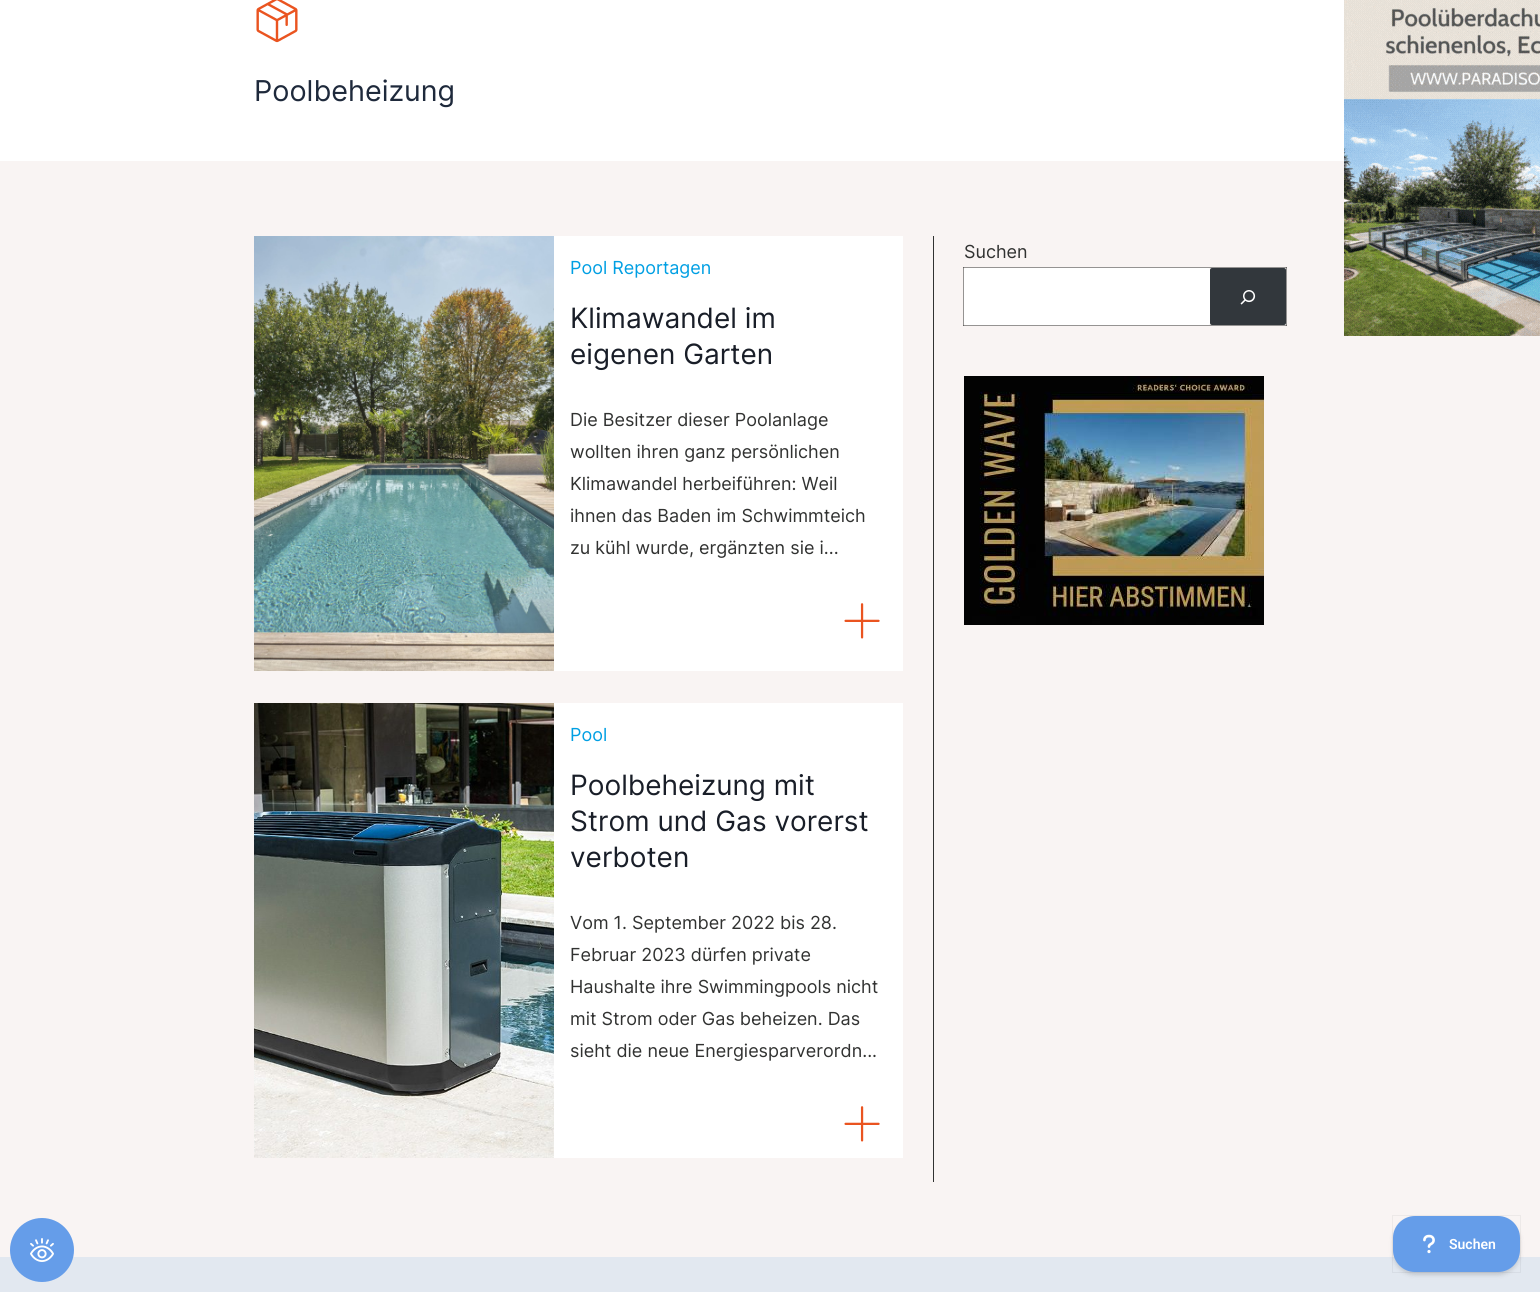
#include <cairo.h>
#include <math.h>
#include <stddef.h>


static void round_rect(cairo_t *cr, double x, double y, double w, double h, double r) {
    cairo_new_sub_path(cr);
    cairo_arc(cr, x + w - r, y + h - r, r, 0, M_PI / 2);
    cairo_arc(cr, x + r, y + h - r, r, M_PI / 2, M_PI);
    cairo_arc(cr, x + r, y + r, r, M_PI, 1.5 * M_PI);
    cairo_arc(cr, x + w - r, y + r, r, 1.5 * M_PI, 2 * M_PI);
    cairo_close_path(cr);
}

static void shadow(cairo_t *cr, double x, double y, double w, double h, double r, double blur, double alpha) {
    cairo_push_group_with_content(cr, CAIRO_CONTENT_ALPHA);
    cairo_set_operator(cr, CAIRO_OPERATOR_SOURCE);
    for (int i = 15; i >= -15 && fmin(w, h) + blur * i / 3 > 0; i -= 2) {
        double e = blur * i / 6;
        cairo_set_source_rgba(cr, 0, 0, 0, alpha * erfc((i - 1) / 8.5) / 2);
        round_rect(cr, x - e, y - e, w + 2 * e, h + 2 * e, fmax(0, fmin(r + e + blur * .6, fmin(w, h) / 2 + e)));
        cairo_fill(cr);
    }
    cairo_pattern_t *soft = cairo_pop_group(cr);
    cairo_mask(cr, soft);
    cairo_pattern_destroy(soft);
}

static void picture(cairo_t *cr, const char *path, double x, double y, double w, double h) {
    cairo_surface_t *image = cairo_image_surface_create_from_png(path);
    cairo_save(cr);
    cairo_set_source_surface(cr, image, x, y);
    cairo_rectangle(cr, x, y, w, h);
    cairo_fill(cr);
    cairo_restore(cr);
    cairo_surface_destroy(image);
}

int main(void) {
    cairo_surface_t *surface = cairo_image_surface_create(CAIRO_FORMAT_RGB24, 1540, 1292);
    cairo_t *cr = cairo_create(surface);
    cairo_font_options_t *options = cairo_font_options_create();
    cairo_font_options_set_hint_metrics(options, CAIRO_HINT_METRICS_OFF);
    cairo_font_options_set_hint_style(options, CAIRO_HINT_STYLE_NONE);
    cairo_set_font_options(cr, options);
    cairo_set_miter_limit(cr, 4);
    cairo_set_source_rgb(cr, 1, 1, 1);
    cairo_paint(cr);
    picture(cr, "img1.png", 256, 0, 42, 43);
    cairo_select_font_face(cr, "Inter", CAIRO_FONT_SLANT_NORMAL, CAIRO_FONT_WEIGHT_NORMAL);
    cairo_set_font_size(cr, 28.75);
    cairo_set_source_rgb(cr, 0.118, 0.161, 0.231);
    cairo_move_to(cr, 254, 101);
    cairo_show_text(cr, "Poolbeheizung");
    cairo_set_source_rgb(cr, 0.973, 0.957, 0.953);
    cairo_rectangle(cr, 0, 161, 1540, 1096);
    cairo_fill(cr);
    cairo_set_font_size(cr, 18);
    cairo_set_source_rgb(cr, 0.192, 0.196, 0.192);
    cairo_move_to(cr, 964, 258);
    cairo_show_text(cr, "Suchen");
    cairo_set_source_rgb(cr, 1, 1, 1);
    round_rect(cr, 964, 268, 246, 57, 2);
    cairo_fill(cr);
    cairo_set_source_rgb(cr, 0.196, 0.216, 0.235);
    round_rect(cr, 1210, 268, 76, 57, 2);
    cairo_fill(cr);
    cairo_new_path(cr);
    cairo_move_to(cr, 963.5, 267.5);
    cairo_line_to(cr, 1286.5, 267.5);
    cairo_line_to(cr, 1286.5, 325.5);
    cairo_line_to(cr, 963.5, 325.5);
    cairo_close_path(cr);
    cairo_set_source_rgb(cr, 0.192, 0.196, 0.192);
    cairo_set_line_width(cr, 1);
    cairo_set_dash(cr, (double[]){1, 1}, 2, 0);
    cairo_stroke(cr);
    picture(cr, "img2.png", 1240, 290, 16, 15);
    picture(cr, "img3.png", 964, 376, 300, 249);
    cairo_rectangle(cr, 933, 236, 1, 946);
    cairo_fill(cr);
    picture(cr, "img4.png", 254, 236, 300, 435);
    cairo_set_source_rgb(cr, 1, 1, 1);
    cairo_rectangle(cr, 554, 236, 349, 435);
    cairo_fill(cr);
    cairo_set_source_rgb(cr, 0, 0.624, 0.89);
    cairo_move_to(cr, 570, 274);
    cairo_show_text(cr, "Pool Reportagen");
    cairo_set_font_size(cr, 28);
    cairo_set_source_rgb(cr, 0.098, 0.118, 0.157);
    cairo_move_to(cr, 570, 328);
    cairo_show_text(cr, "Klimawandel im");
    cairo_move_to(cr, 570, 364);
    cairo_show_text(cr, "eigenen Garten");
    cairo_set_font_size(cr, 18);
    cairo_set_source_rgb(cr, 0.192, 0.196, 0.192);
    cairo_move_to(cr, 570, 426);
    cairo_show_text(cr, "Die Besitzer dieser Poolanlage");
    cairo_move_to(cr, 570, 458);
    cairo_show_text(cr, "wollten ihren ganz persönlichen");
    cairo_move_to(cr, 570, 490);
    cairo_show_text(cr, "Klimawandel herbeiführen: Weil");
    cairo_move_to(cr, 570, 522);
    cairo_show_text(cr, "ihnen das Baden im Schwimmteich");
    cairo_move_to(cr, 570, 554);
    cairo_show_text(cr, "zu kühl wurde, ergänzten sie i...");
    picture(cr, "img5.png", 844, 603, 36, 36);
    picture(cr, "img6.png", 254, 703, 300, 455);
    cairo_set_source_rgb(cr, 1, 1, 1);
    cairo_rectangle(cr, 554, 703, 349, 455);
    cairo_fill(cr);
    cairo_set_source_rgb(cr, 0, 0.624, 0.89);
    cairo_move_to(cr, 570, 741);
    cairo_show_text(cr, "Pool");
    cairo_set_font_size(cr, 28);
    cairo_set_source_rgb(cr, 0.098, 0.118, 0.157);
    cairo_move_to(cr, 570, 795);
    cairo_show_text(cr, "Poolbeheizung mit");
    cairo_move_to(cr, 570, 831);
    cairo_show_text(cr, "Strom und Gas vorerst");
    cairo_move_to(cr, 570, 867);
    cairo_show_text(cr, "verboten");
    cairo_set_font_size(cr, 18);
    cairo_set_source_rgb(cr, 0.192, 0.196, 0.192);
    cairo_move_to(cr, 570, 929);
    cairo_show_text(cr, "Vom 1. September 2022 bis 28.");
    cairo_move_to(cr, 570, 961);
    cairo_show_text(cr, "Februar 2023 dürfen private");
    cairo_move_to(cr, 570, 993);
    cairo_show_text(cr, "Haushalte ihre Swimmingpools nicht");
    cairo_move_to(cr, 570, 1025);
    cairo_show_text(cr, "mit Strom oder Gas beheizen. Das");
    cairo_move_to(cr, 570, 1057);
    cairo_show_text(cr, "sieht die neue Energiesparverordn...");
    picture(cr, "img5.png", 844, 1106, 36, 36);
    picture(cr, "img7.png", 1344, 0, 196, 336);
    cairo_set_source_rgb(cr, 0.886, 0.91, 0.941);
    cairo_rectangle(cr, 0, 1257, 1540, 35);
    cairo_fill(cr);
    cairo_set_source_rgb(cr, 0.396, 0.616, 0.914);
    cairo_arc(cr, 42, 1250, 32, 0, 2 * M_PI);
    cairo_fill(cr);
    picture(cr, "img8.png", 30, 1238, 24, 24);
    cairo_set_source_rgb(cr, 0, 0, 0);
    shadow(cr, 1393, 1219, 127, 56, 22, 1.5, 0.05);
    shadow(cr, 1393, 1219, 127, 56, 22, 2.5, 0.1);
    cairo_rectangle(cr, 1392.5, 1215.5, 128, 57);
    cairo_set_source_rgba(cr, 0, 0, 0, 0.05);
    cairo_set_dash(cr, NULL, 0, 0);
    cairo_stroke(cr);
    cairo_set_source_rgb(cr, 0.396, 0.616, 0.914);
    round_rect(cr, 1393, 1216, 127, 56, 22);
    cairo_fill(cr);
    picture(cr, "img9.png", 1423, 1234, 12, 20);
    cairo_select_font_face(cr, "Roboto SemiBold", CAIRO_FONT_SLANT_NORMAL, CAIRO_FONT_WEIGHT_NORMAL);
    cairo_set_font_size(cr, 14);
    cairo_set_source_rgb(cr, 1, 1, 1);
    cairo_move_to(cr, 1449, 1249);
    cairo_show_text(cr, "Suchen");
    cairo_surface_write_to_png(surface, "page.png");
    cairo_font_options_destroy(options);
    cairo_destroy(cr);
    cairo_surface_destroy(surface);
    return 0;
}
